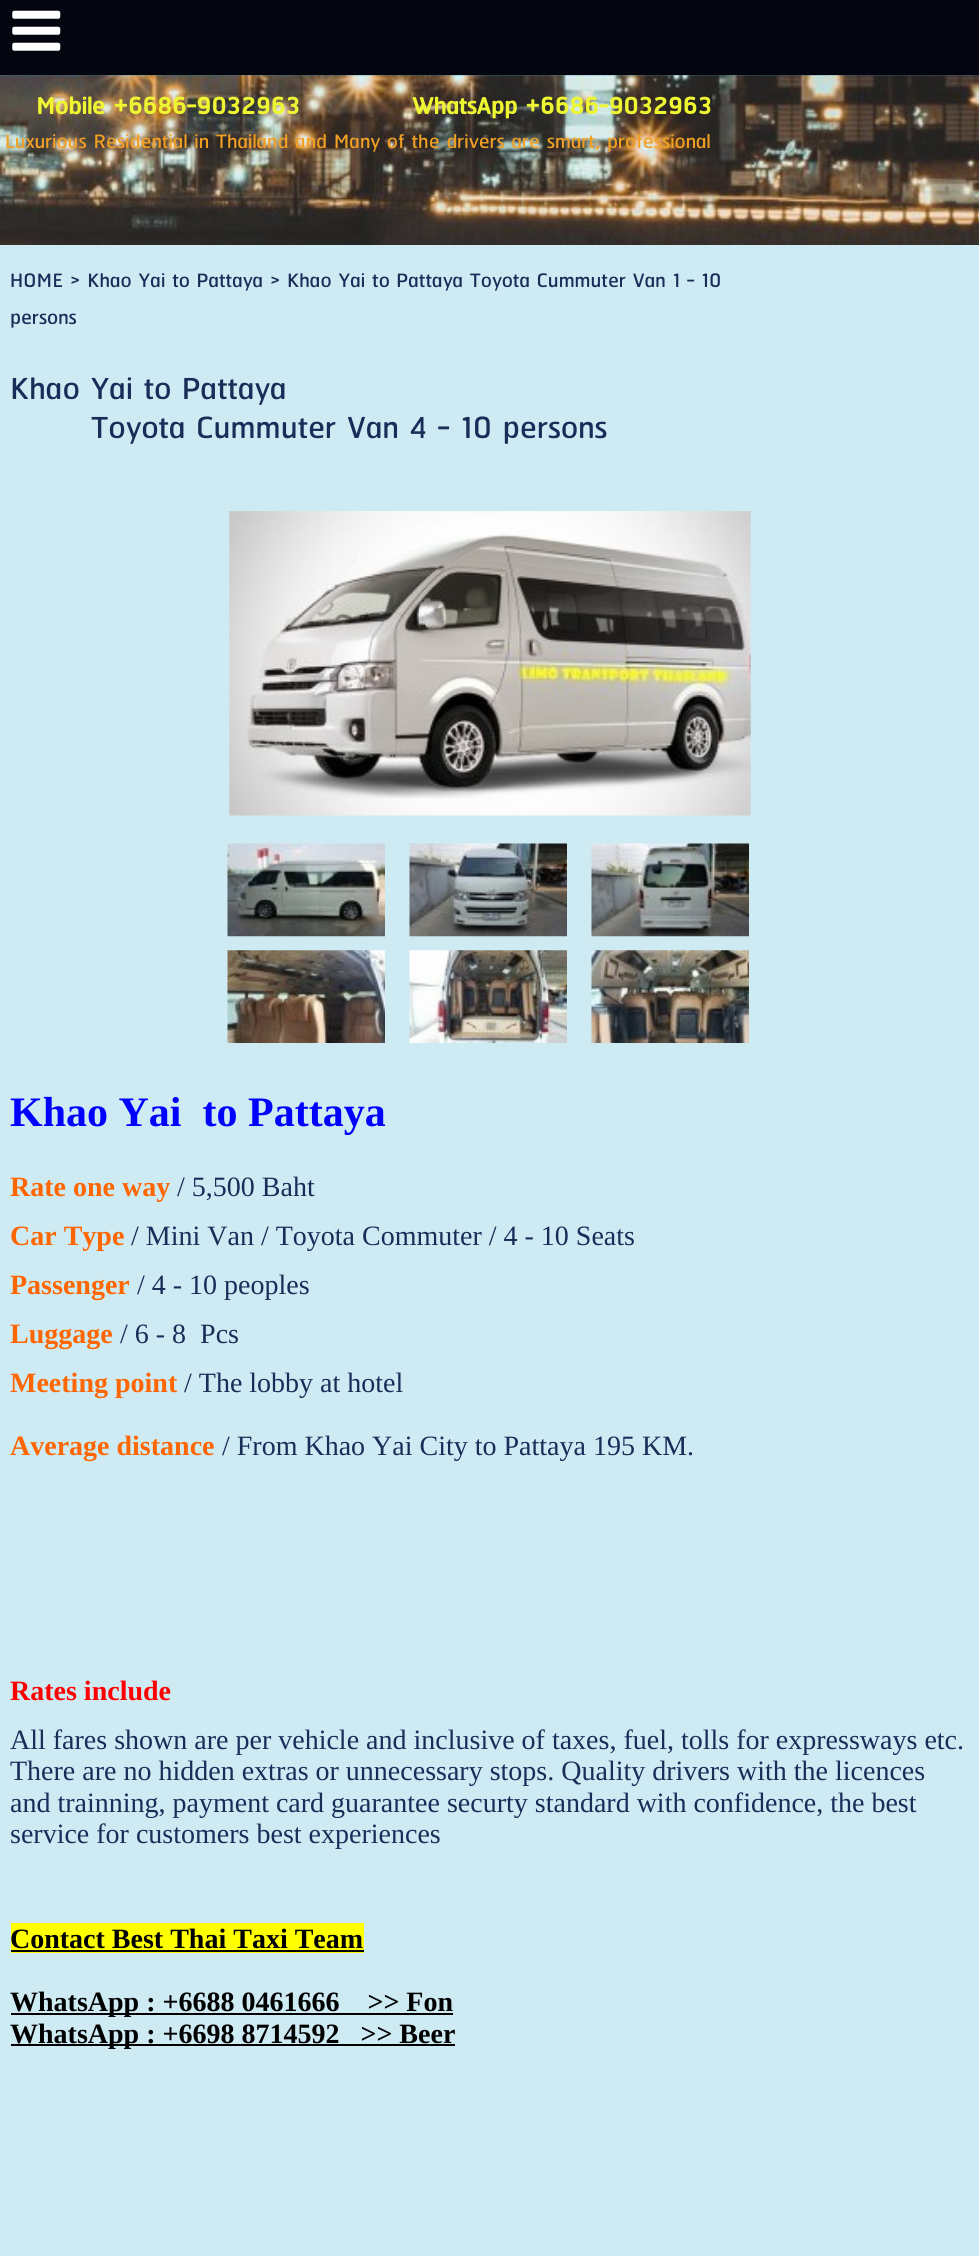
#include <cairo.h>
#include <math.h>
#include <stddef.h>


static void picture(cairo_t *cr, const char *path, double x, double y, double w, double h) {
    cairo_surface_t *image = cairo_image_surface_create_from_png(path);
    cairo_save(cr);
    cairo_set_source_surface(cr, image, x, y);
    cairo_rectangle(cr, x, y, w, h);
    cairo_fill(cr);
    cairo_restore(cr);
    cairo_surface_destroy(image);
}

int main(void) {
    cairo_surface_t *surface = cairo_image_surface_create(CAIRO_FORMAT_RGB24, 979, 2256);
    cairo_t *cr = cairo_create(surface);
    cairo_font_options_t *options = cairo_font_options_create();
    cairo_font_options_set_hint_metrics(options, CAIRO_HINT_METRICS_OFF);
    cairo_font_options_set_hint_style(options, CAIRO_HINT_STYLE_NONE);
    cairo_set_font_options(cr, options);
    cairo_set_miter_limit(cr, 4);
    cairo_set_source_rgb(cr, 1, 1, 1);
    cairo_paint(cr);
    picture(cr, "img1.png", 0, 75, 979, 1);
    cairo_set_source_rgb(cr, 0.016, 0.024, 0.059);
    cairo_rectangle(cr, 0, 0, 979, 75);
    cairo_fill(cr);
    picture(cr, "img2.png", 12, 10, 49, 41);
    picture(cr, "img3.png", 0, 75, 979, 170);
    cairo_select_font_face(cr, "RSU", CAIRO_FONT_SLANT_NORMAL, CAIRO_FONT_WEIGHT_BOLD);
    cairo_set_font_size(cr, 29.4);
    cairo_set_source_rgb(cr, 0.933, 0.961, 0.192);
    cairo_move_to(cr, 36, 114);
    cairo_show_text(cr, "Mobile +6686-9032963");
    cairo_move_to(cr, 412, 114);
    cairo_show_text(cr, "WhatsApp +6686-9032963");
    cairo_select_font_face(cr, "RSU", CAIRO_FONT_SLANT_NORMAL, CAIRO_FONT_WEIGHT_NORMAL);
    cairo_set_font_size(cr, 24.5);
    cairo_set_source_rgb(cr, 0.949, 0.627, 0.141);
    cairo_move_to(cr, 5, 148);
    cairo_show_text(cr, "Luxurious Residential in Thailand and Many of the drivers are smart, professional");
    cairo_set_source_rgb(cr, 0.808, 0.918, 0.957);
    cairo_rectangle(cr, 0, 245, 979, 2011);
    cairo_fill(cr);
    cairo_set_source_rgb(cr, 0.098, 0.176, 0.349);
    cairo_move_to(cr, 10, 287);
    cairo_show_text(cr, "HOME > Khao Yai to Pattaya > Khao Yai to Pattaya Toyota Cummuter Van 1 - 10");
    cairo_move_to(cr, 10, 324);
    cairo_show_text(cr, "persons");
    cairo_set_font_size(cr, 38.5);
    cairo_move_to(cr, 10, 399);
    cairo_show_text(cr, "Khao Yai to Pattaya");
    cairo_move_to(cr, 91, 438);
    cairo_show_text(cr, "Toyota Cummuter Van 4 - 10 persons");
    picture(cr, "img4.png", 229, 511, 522, 305);
    picture(cr, "img5.png", 227, 843, 158, 94);
    picture(cr, "img6.png", 409, 843, 158, 94);
    picture(cr, "img7.png", 591, 843, 158, 94);
    picture(cr, "img8.png", 227, 950, 158, 93);
    picture(cr, "img9.png", 409, 950, 158, 93);
    picture(cr, "img10.png", 591, 950, 158, 93);
    cairo_select_font_face(cr, "Liberation Serif", CAIRO_FONT_SLANT_NORMAL, CAIRO_FONT_WEIGHT_BOLD);
    cairo_set_font_size(cr, 42);
    cairo_set_source_rgb(cr, 0, 0, 1);
    cairo_move_to(cr, 10, 1126);
    cairo_show_text(cr, "Khao Yai  to Pattaya");
    cairo_set_font_size(cr, 28);
    cairo_set_source_rgb(cr, 1, 0.4, 0);
    cairo_move_to(cr, 10, 1196);
    cairo_show_text(cr, "Rate one way");
    cairo_select_font_face(cr, "Liberation Serif", CAIRO_FONT_SLANT_NORMAL, CAIRO_FONT_WEIGHT_NORMAL);
    cairo_set_source_rgb(cr, 0.098, 0.176, 0.349);
    cairo_move_to(cr, 177, 1196);
    cairo_show_text(cr, "/ 5,500 Baht");
    cairo_select_font_face(cr, "Liberation Serif", CAIRO_FONT_SLANT_NORMAL, CAIRO_FONT_WEIGHT_BOLD);
    cairo_set_source_rgb(cr, 1, 0.4, 0);
    cairo_move_to(cr, 10, 1245);
    cairo_show_text(cr, "Car Type");
    cairo_select_font_face(cr, "Liberation Serif", CAIRO_FONT_SLANT_NORMAL, CAIRO_FONT_WEIGHT_NORMAL);
    cairo_set_source_rgb(cr, 0.098, 0.176, 0.349);
    cairo_move_to(cr, 131, 1245);
    cairo_show_text(cr, "/ Mini Van / Toyota Commuter / 4 - 10 Seats");
    cairo_select_font_face(cr, "Liberation Serif", CAIRO_FONT_SLANT_NORMAL, CAIRO_FONT_WEIGHT_BOLD);
    cairo_set_source_rgb(cr, 1, 0.4, 0);
    cairo_move_to(cr, 10, 1294);
    cairo_show_text(cr, "Passenger");
    cairo_select_font_face(cr, "Liberation Serif", CAIRO_FONT_SLANT_NORMAL, CAIRO_FONT_WEIGHT_NORMAL);
    cairo_set_source_rgb(cr, 0.098, 0.176, 0.349);
    cairo_move_to(cr, 137, 1294);
    cairo_show_text(cr, "/ 4 - 10 peoples");
    cairo_select_font_face(cr, "Liberation Serif", CAIRO_FONT_SLANT_NORMAL, CAIRO_FONT_WEIGHT_BOLD);
    cairo_set_source_rgb(cr, 1, 0.4, 0);
    cairo_move_to(cr, 10, 1343);
    cairo_show_text(cr, "Luggage");
    cairo_select_font_face(cr, "Liberation Serif", CAIRO_FONT_SLANT_NORMAL, CAIRO_FONT_WEIGHT_NORMAL);
    cairo_set_source_rgb(cr, 0.098, 0.176, 0.349);
    cairo_move_to(cr, 120, 1343);
    cairo_show_text(cr, "/ 6 - 8  Pcs");
    cairo_select_font_face(cr, "Liberation Serif", CAIRO_FONT_SLANT_NORMAL, CAIRO_FONT_WEIGHT_BOLD);
    cairo_set_source_rgb(cr, 1, 0.4, 0);
    cairo_move_to(cr, 10, 1392);
    cairo_show_text(cr, "Meeting point");
    cairo_select_font_face(cr, "Liberation Serif", CAIRO_FONT_SLANT_NORMAL, CAIRO_FONT_WEIGHT_NORMAL);
    cairo_set_source_rgb(cr, 0.098, 0.176, 0.349);
    cairo_move_to(cr, 184, 1392);
    cairo_show_text(cr, "/ The lobby at hotel");
    cairo_select_font_face(cr, "Liberation Serif", CAIRO_FONT_SLANT_NORMAL, CAIRO_FONT_WEIGHT_BOLD);
    cairo_set_source_rgb(cr, 1, 0.4, 0);
    cairo_move_to(cr, 10, 1455);
    cairo_show_text(cr, "Average distance");
    cairo_select_font_face(cr, "Liberation Serif", CAIRO_FONT_SLANT_NORMAL, CAIRO_FONT_WEIGHT_NORMAL);
    cairo_set_source_rgb(cr, 0.098, 0.176, 0.349);
    cairo_move_to(cr, 222, 1455);
    cairo_show_text(cr, "/ From Khao Yai City to Pattaya 195 KM.");
    cairo_select_font_face(cr, "Liberation Serif", CAIRO_FONT_SLANT_NORMAL, CAIRO_FONT_WEIGHT_BOLD);
    cairo_set_source_rgb(cr, 1, 0, 0);
    cairo_move_to(cr, 10, 1700);
    cairo_show_text(cr, "Rates include");
    cairo_select_font_face(cr, "Liberation Serif", CAIRO_FONT_SLANT_NORMAL, CAIRO_FONT_WEIGHT_NORMAL);
    cairo_set_source_rgb(cr, 0.098, 0.176, 0.349);
    cairo_move_to(cr, 10, 1749);
    cairo_show_text(cr, "All fares shown are per vehicle and inclusive of taxes, fuel, tolls for expressways etc.");
    cairo_move_to(cr, 10, 1780);
    cairo_show_text(cr, "There are no hidden extras or unnecessary stops. Quality drivers with the licences");
    cairo_move_to(cr, 10, 1812);
    cairo_show_text(cr, "and trainning, payment card guarantee securty standard with confidence, the best");
    cairo_move_to(cr, 10, 1843);
    cairo_show_text(cr, "service for customers best experiences");
    cairo_set_source_rgb(cr, 1, 1, 0);
    cairo_rectangle(cr, 11, 1923, 353, 30);
    cairo_fill(cr);
    cairo_select_font_face(cr, "Liberation Serif", CAIRO_FONT_SLANT_NORMAL, CAIRO_FONT_WEIGHT_BOLD);
    cairo_set_source_rgb(cr, 0, 0, 0);
    cairo_move_to(cr, 10, 1948);
    cairo_show_text(cr, "Contact Best Thai Taxi Team");
    cairo_rectangle(cr, 11, 1950, 353, 2);
    cairo_fill(cr);
    cairo_rectangle(cr, 11, 2013, 442, 2);
    cairo_fill(cr);
    cairo_move_to(cr, 10, 2011);
    cairo_show_text(cr, "WhatsApp : +6688 0461666    >> Fon");
    cairo_rectangle(cr, 11, 2044, 444, 2);
    cairo_fill(cr);
    cairo_move_to(cr, 10, 2043);
    cairo_show_text(cr, "WhatsApp : +6698 8714592   >> Beer");
    cairo_surface_write_to_png(surface, "page.png");
    cairo_font_options_destroy(options);
    cairo_destroy(cr);
    cairo_surface_destroy(surface);
    return 0;
}
